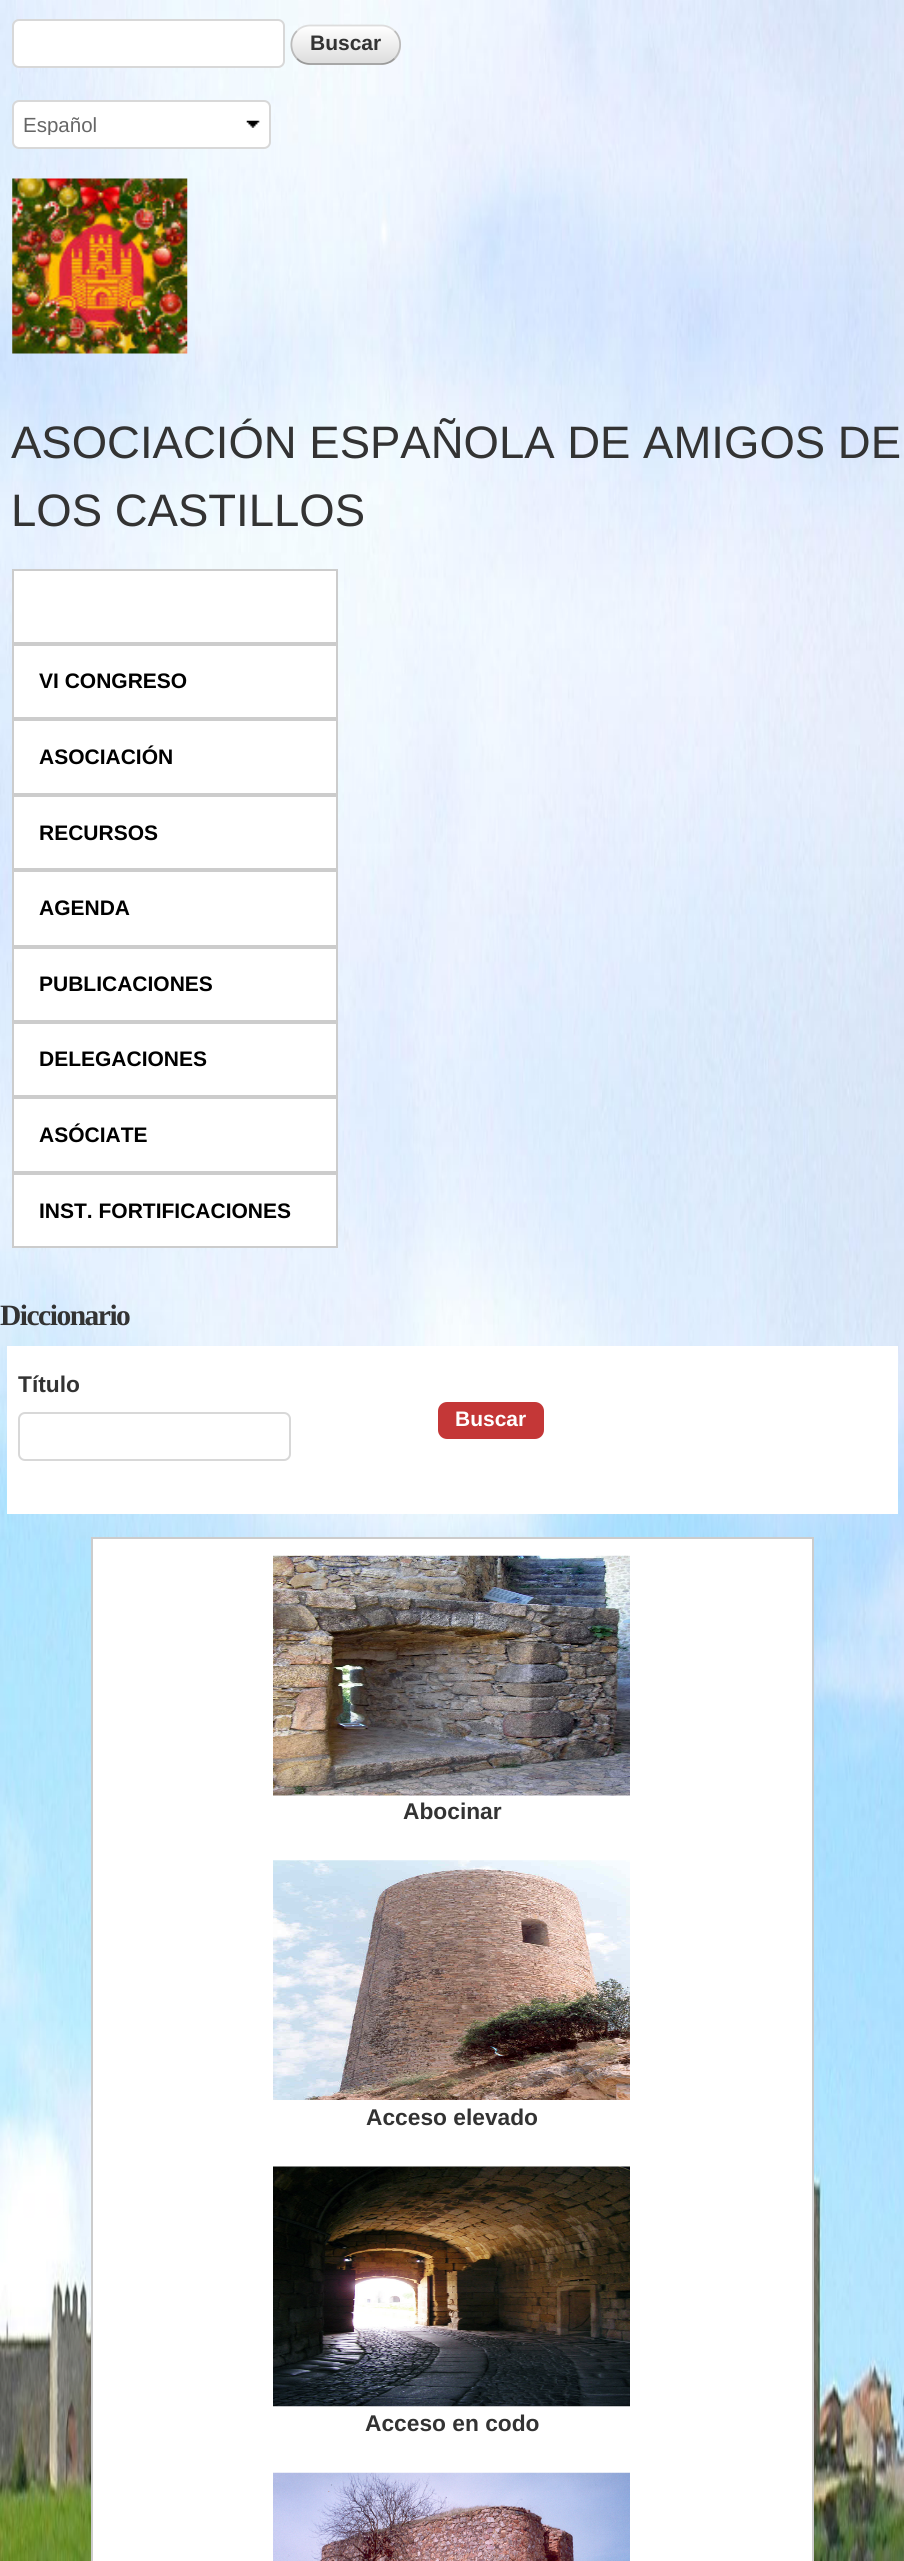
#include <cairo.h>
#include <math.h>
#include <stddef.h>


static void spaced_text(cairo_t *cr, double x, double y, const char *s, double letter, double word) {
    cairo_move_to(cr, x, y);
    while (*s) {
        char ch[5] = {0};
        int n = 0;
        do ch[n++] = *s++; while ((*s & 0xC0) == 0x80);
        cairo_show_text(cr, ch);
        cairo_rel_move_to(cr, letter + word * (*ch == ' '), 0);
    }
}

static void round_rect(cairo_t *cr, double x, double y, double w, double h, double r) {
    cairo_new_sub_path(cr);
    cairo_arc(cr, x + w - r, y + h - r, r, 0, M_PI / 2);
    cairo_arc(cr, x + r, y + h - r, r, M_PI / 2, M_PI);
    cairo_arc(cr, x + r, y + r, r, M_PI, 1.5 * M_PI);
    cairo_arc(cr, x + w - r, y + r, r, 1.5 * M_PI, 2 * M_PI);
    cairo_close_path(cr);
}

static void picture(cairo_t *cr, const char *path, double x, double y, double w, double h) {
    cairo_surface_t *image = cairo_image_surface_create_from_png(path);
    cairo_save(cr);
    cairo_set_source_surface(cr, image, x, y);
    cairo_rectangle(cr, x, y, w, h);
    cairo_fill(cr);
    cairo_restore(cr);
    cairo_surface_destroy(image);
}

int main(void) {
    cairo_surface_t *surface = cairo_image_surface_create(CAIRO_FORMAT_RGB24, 904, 2561);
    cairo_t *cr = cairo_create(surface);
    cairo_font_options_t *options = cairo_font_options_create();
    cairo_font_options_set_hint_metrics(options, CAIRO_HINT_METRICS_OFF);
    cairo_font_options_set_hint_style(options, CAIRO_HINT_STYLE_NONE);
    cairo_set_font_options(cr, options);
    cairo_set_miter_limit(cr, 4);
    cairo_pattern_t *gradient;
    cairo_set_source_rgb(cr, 1, 1, 1);
    cairo_paint(cr);
    picture(cr, "img1.png", 0, 0, 904, 2561);
    cairo_set_source_rgb(cr, 1, 1, 1);
    round_rect(cr, 14, 21, 270, 46, 4);
    cairo_fill(cr);
    round_rect(cr, 13, 20, 271, 47, 6);
    cairo_set_source_rgb(cr, 0.847, 0.847, 0.847);
    cairo_stroke(cr);
    cairo_save(cr);
    round_rect(cr, 291, 25, 110, 40, 19);
    cairo_clip(cr);
    gradient = cairo_pattern_create_linear(292, 26, 292, 63);
    cairo_pattern_add_color_stop_rgba(gradient, 0, 1, 1, 1, 1);
    cairo_pattern_add_color_stop_rgba(gradient, 1, 0.867, 0.867, 0.867, 1);
    cairo_set_source(cr, gradient);
    cairo_pattern_destroy(gradient);
    cairo_rectangle(cr, 291, 26, 110, 37);
    cairo_fill(cr);
    gradient = cairo_pattern_create_linear(292, 63, 292, 100);
    cairo_pattern_add_color_stop_rgba(gradient, 0, 1, 1, 1, 1);
    cairo_pattern_add_color_stop_rgba(gradient, 1, 0.867, 0.867, 0.867, 1);
    cairo_set_source(cr, gradient);
    cairo_pattern_destroy(gradient);
    cairo_rectangle(cr, 301, 63, 90, 2);
    cairo_fill(cr);
    cairo_restore(cr);
    cairo_new_path(cr);
    cairo_move_to(cr, 297, 31);
    cairo_curve_to(cr, 300, 27.5, 305, 25.5, 310, 25.5);
    cairo_line_to(cr, 381.5, 25.5);
    cairo_curve_to(cr, 386.5, 25.5, 391, 27.5, 394.5, 31);
    cairo_set_source_rgb(cr, 0.867, 0.867, 0.867);
    cairo_set_line_width(cr, 1.8);
    cairo_stroke(cr);
    cairo_new_path(cr);
    cairo_move_to(cr, 394.5, 31);
    cairo_curve_to(cr, 402, 38, 402, 51, 394.5, 58.5);
    cairo_set_source_rgb(cr, 0.733, 0.733, 0.733);
    cairo_stroke(cr);
    cairo_new_path(cr);
    cairo_move_to(cr, 394.5, 58.5);
    cairo_curve_to(cr, 391, 62, 386.5, 64, 381.5, 64);
    cairo_line_to(cr, 310, 64);
    cairo_curve_to(cr, 305, 64, 300, 62, 297, 58.5);
    cairo_set_source_rgb(cr, 0.6, 0.6, 0.6);
    cairo_stroke(cr);
    cairo_new_path(cr);
    cairo_move_to(cr, 297, 58.5);
    cairo_curve_to(cr, 289.5, 51, 289.5, 38, 297, 31);
    cairo_set_source_rgb(cr, 0.733, 0.733, 0.733);
    cairo_stroke(cr);
    cairo_select_font_face(cr, "Liberation Sans", CAIRO_FONT_SLANT_NORMAL, CAIRO_FONT_WEIGHT_BOLD);
    cairo_set_font_size(cr, 21);
    cairo_set_source_rgb(cr, 0.2, 0.2, 0.2);
    cairo_move_to(cr, 310, 50);
    cairo_show_text(cr, "Buscar");
    cairo_set_source_rgb(cr, 1, 1, 1);
    round_rect(cr, 14, 102, 256, 45, 4);
    cairo_fill(cr);
    picture(cr, "img2.png", 246, 120, 14, 8);
    round_rect(cr, 13, 101, 257, 47, 6);
    cairo_set_source_rgb(cr, 0.847, 0.847, 0.847);
    cairo_set_line_width(cr, 2);
    cairo_stroke(cr);
    cairo_save(cr);
    cairo_rectangle(cr, 23, 112, 236, 23);
    cairo_clip(cr);
    cairo_select_font_face(cr, "Liberation Sans", CAIRO_FONT_SLANT_NORMAL, CAIRO_FONT_WEIGHT_NORMAL);
    cairo_set_font_size(cr, 20.5);
    cairo_set_source_rgb(cr, 0.4, 0.4, 0.4);
    cairo_move_to(cr, 23, 132);
    cairo_show_text(cr, "Español");
    cairo_restore(cr);
    picture(cr, "img3.png", 12, 178, 176, 176);
    cairo_select_font_face(cr, "Liberation Sans", CAIRO_FONT_SLANT_NORMAL, CAIRO_FONT_WEIGHT_NORMAL);
    cairo_set_font_size(cr, 45.5);
    cairo_set_source_rgb(cr, 0.2, 0.2, 0.2);
    cairo_move_to(cr, 11, 458);
    cairo_show_text(cr, "ASOCIACIÓN ESPAÑOLA DE AMIGOS DE");
    cairo_move_to(cr, 11, 526);
    cairo_show_text(cr, "LOS CASTILLOS");
    cairo_set_source_rgb(cr, 1, 1, 1);
    cairo_rectangle(cr, 13, 570, 324, 73);
    cairo_fill_preserve(cr);
    cairo_set_source_rgb(cr, 0.8, 0.8, 0.8);
    cairo_stroke(cr);
    cairo_set_source_rgb(cr, 1, 1, 1);
    cairo_rectangle(cr, 13, 645, 324, 73);
    cairo_fill_preserve(cr);
    cairo_set_source_rgb(cr, 0.8, 0.8, 0.8);
    cairo_stroke(cr);
    cairo_select_font_face(cr, "Liberation Sans", CAIRO_FONT_SLANT_NORMAL, CAIRO_FONT_WEIGHT_BOLD);
    cairo_set_font_size(cr, 21);
    cairo_set_source_rgb(cr, 0, 0, 0);
    cairo_move_to(cr, 39, 688);
    cairo_show_text(cr, "VI CONGRESO");
    cairo_set_source_rgb(cr, 1, 1, 1);
    cairo_rectangle(cr, 13, 720, 324, 74);
    cairo_fill_preserve(cr);
    cairo_set_source_rgb(cr, 0.8, 0.8, 0.8);
    cairo_stroke(cr);
    cairo_set_source_rgb(cr, 0, 0, 0);
    cairo_move_to(cr, 39, 764);
    cairo_show_text(cr, "ASOCIACIÓN");
    cairo_set_source_rgb(cr, 1, 1, 1);
    cairo_rectangle(cr, 13, 796, 324, 73);
    cairo_fill_preserve(cr);
    cairo_set_source_rgb(cr, 0.8, 0.8, 0.8);
    cairo_stroke(cr);
    cairo_set_source_rgb(cr, 0, 0, 0);
    cairo_move_to(cr, 39, 840);
    cairo_show_text(cr, "RECURSOS");
    cairo_set_source_rgb(cr, 1, 1, 1);
    cairo_rectangle(cr, 13, 871, 324, 75);
    cairo_fill_preserve(cr);
    cairo_set_source_rgb(cr, 0.8, 0.8, 0.8);
    cairo_stroke(cr);
    cairo_set_source_rgb(cr, 0, 0, 0);
    cairo_move_to(cr, 39, 915);
    cairo_show_text(cr, "AGENDA");
    cairo_set_source_rgb(cr, 1, 1, 1);
    cairo_rectangle(cr, 13, 948, 324, 73);
    cairo_fill_preserve(cr);
    cairo_set_source_rgb(cr, 0.8, 0.8, 0.8);
    cairo_stroke(cr);
    cairo_set_source_rgb(cr, 0, 0, 0);
    cairo_move_to(cr, 39, 991);
    cairo_show_text(cr, "PUBLICACIONES");
    cairo_set_source_rgb(cr, 1, 1, 1);
    cairo_rectangle(cr, 13, 1023, 324, 73);
    cairo_fill_preserve(cr);
    cairo_set_source_rgb(cr, 0.8, 0.8, 0.8);
    cairo_stroke(cr);
    cairo_set_source_rgb(cr, 0, 0, 0);
    cairo_move_to(cr, 39, 1066);
    cairo_show_text(cr, "DELEGACIONES");
    cairo_set_source_rgb(cr, 1, 1, 1);
    cairo_rectangle(cr, 13, 1098, 324, 74);
    cairo_fill_preserve(cr);
    cairo_set_source_rgb(cr, 0.8, 0.8, 0.8);
    cairo_stroke(cr);
    cairo_set_source_rgb(cr, 0, 0, 0);
    cairo_move_to(cr, 39, 1142);
    cairo_show_text(cr, "ASÓCIATE");
    cairo_set_source_rgb(cr, 1, 1, 1);
    cairo_rectangle(cr, 13, 1174, 324, 73);
    cairo_fill_preserve(cr);
    cairo_set_source_rgb(cr, 0.8, 0.8, 0.8);
    cairo_stroke(cr);
    cairo_set_source_rgb(cr, 0, 0, 0);
    cairo_move_to(cr, 39, 1218);
    cairo_show_text(cr, "INST. FORTIFICACIONES");
    cairo_select_font_face(cr, "Liberation Serif", CAIRO_FONT_SLANT_NORMAL, CAIRO_FONT_WEIGHT_BOLD);
    cairo_set_font_size(cr, 29.5);
    cairo_set_source_rgb(cr, 0.2, 0.2, 0.2);
    spaced_text(cr, 0, 1325, "Diccionario", -1.5, 0);
    cairo_set_source_rgb(cr, 1, 1, 1);
    cairo_rectangle(cr, 7, 1346, 891, 168);
    cairo_fill(cr);
    cairo_select_font_face(cr, "Liberation Sans", CAIRO_FONT_SLANT_NORMAL, CAIRO_FONT_WEIGHT_BOLD);
    cairo_set_font_size(cr, 22.75);
    cairo_set_source_rgb(cr, 0.2, 0.2, 0.2);
    cairo_move_to(cr, 18, 1392);
    cairo_show_text(cr, "Título");
    round_rect(cr, 19, 1413, 271, 47, 6);
    cairo_set_source_rgb(cr, 0.847, 0.847, 0.847);
    cairo_stroke(cr);
    cairo_set_source_rgb(cr, 0.769, 0.216, 0.216);
    round_rect(cr, 438, 1402, 106, 37, 9);
    cairo_fill(cr);
    cairo_set_font_size(cr, 21);
    cairo_set_source_rgb(cr, 1, 1, 1);
    cairo_move_to(cr, 455, 1426);
    cairo_show_text(cr, "Buscar");
    cairo_rectangle(cr, 93, 1539, 719, 1022);
    cairo_fill(cr);
    cairo_set_source_rgb(cr, 0.8, 0.8, 0.8);
    cairo_rectangle(cr, 91, 1537, 723, 2);
    cairo_fill(cr);
    cairo_rectangle(cr, 812, 1537, 2, 1024);
    cairo_fill(cr);
    cairo_rectangle(cr, 91, 1537, 2, 1024);
    cairo_fill(cr);
    picture(cr, "img4.png", 273, 1555, 357, 241);
    cairo_set_font_size(cr, 22.75);
    cairo_set_source_rgb(cr, 0.2, 0.2, 0.2);
    cairo_move_to(cr, 403, 1819);
    cairo_show_text(cr, "Abocinar");
    picture(cr, "img5.png", 273, 1860, 357, 240);
    cairo_move_to(cr, 366, 2125);
    cairo_show_text(cr, "Acceso elevado");
    picture(cr, "img6.png", 273, 2166, 357, 241);
    cairo_move_to(cr, 365, 2431);
    cairo_show_text(cr, "Acceso en codo");
    picture(cr, "img7.png", 273, 2472, 357, 89);
    cairo_surface_write_to_png(surface, "page.png");
    cairo_font_options_destroy(options);
    cairo_destroy(cr);
    cairo_surface_destroy(surface);
    return 0;
}
